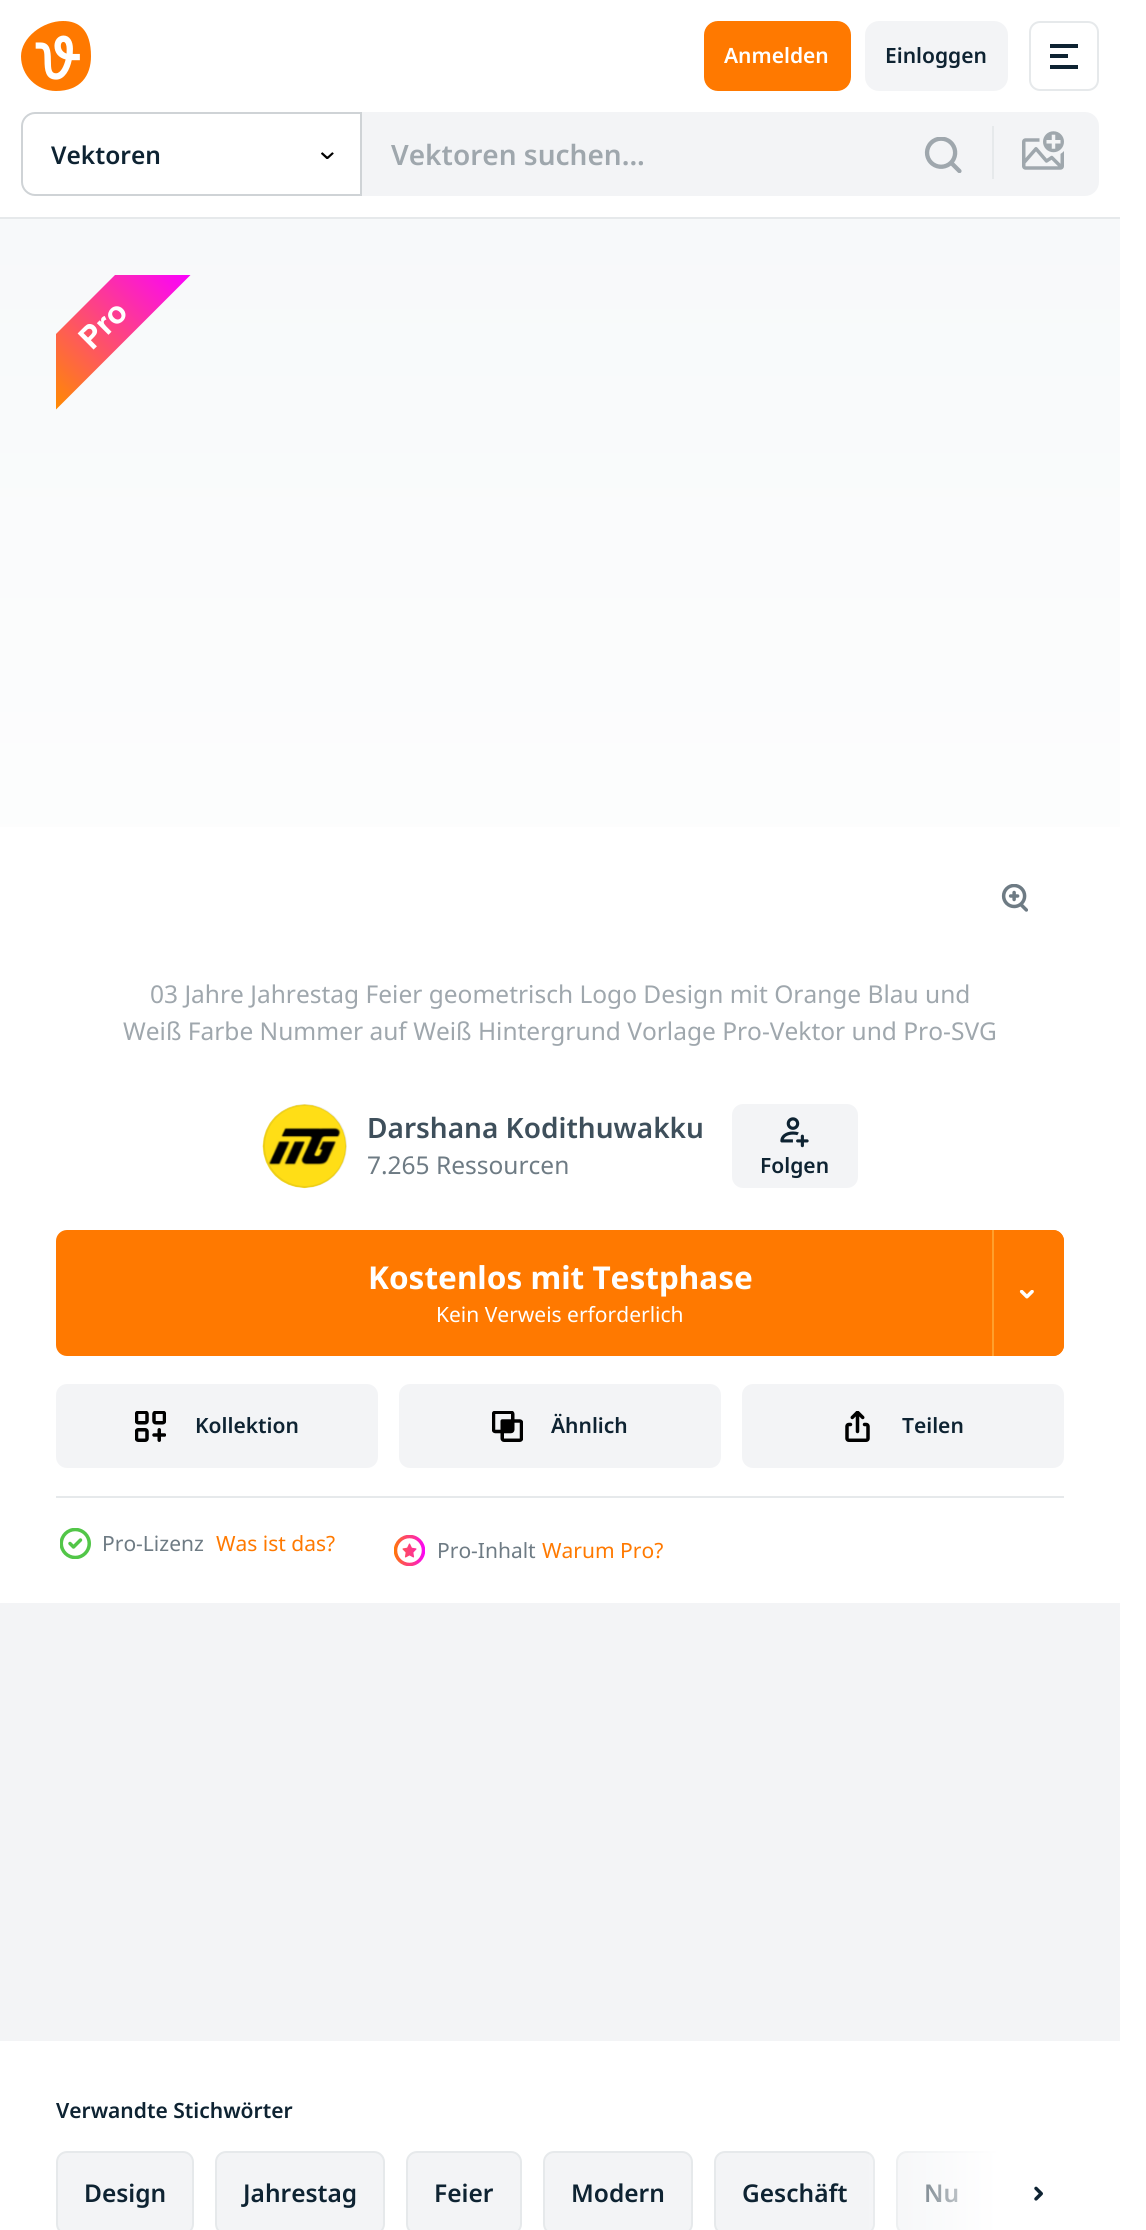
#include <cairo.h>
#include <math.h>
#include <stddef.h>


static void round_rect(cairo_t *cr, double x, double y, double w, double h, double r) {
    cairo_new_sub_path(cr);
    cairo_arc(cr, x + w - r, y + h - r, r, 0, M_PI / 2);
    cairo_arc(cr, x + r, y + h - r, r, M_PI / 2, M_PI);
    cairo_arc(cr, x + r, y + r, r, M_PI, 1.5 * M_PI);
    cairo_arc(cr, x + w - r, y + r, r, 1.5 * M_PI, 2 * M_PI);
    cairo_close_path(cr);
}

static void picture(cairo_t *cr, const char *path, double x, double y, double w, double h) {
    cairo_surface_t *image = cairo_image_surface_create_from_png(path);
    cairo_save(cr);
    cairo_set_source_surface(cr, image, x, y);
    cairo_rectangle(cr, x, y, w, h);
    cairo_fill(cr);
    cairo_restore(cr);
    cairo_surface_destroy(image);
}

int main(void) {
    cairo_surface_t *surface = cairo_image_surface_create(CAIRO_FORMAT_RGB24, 1146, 2230);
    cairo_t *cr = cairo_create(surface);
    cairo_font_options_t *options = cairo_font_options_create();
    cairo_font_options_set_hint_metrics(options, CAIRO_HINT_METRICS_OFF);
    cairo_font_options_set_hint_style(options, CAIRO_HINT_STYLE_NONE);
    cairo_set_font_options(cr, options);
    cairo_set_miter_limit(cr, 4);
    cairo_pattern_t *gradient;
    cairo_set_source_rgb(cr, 1, 1, 1);
    cairo_paint(cr);
    cairo_set_source_rgb(cr, 0.902, 0.914, 0.918);
    cairo_rectangle(cr, 0, 217, 1120, 2);
    cairo_fill(cr);
    picture(cr, "img1.png", 21, 21, 70, 70);
    cairo_set_source_rgb(cr, 1, 0.475, 0);
    round_rect(cr, 704, 21, 147, 70, 14);
    cairo_fill(cr);
    cairo_select_font_face(cr, "Noto Sans SemiBold", CAIRO_FONT_SLANT_NORMAL, CAIRO_FONT_WEIGHT_NORMAL);
    cairo_set_font_size(cr, 21);
    cairo_set_source_rgb(cr, 1, 1, 1);
    cairo_move_to(cr, 724, 63);
    cairo_show_text(cr, "Anmelden");
    cairo_set_source_rgb(cr, 0.953, 0.957, 0.961);
    round_rect(cr, 865, 21, 143, 70, 14);
    cairo_fill(cr);
    cairo_set_source_rgb(cr, 0.055, 0.137, 0.196);
    cairo_move_to(cr, 885, 63);
    cairo_show_text(cr, "Einloggen");
    round_rect(cr, 1030, 22, 68, 68, 10);
    cairo_set_source_rgb(cr, 0.902, 0.914, 0.918);
    cairo_stroke(cr);
    cairo_set_source_rgb(cr, 0.055, 0.137, 0.196);
    cairo_rectangle(cr, 1050, 44, 28, 4);
    cairo_fill(cr);
    cairo_rectangle(cr, 1050, 54, 18, 4);
    cairo_fill(cr);
    cairo_rectangle(cr, 1050, 65, 28, 4);
    cairo_fill(cr);
    cairo_set_source_rgb(cr, 0.953, 0.957, 0.961);
    round_rect(cr, 21, 112, 1078, 84, 14);
    cairo_fill(cr);
    cairo_set_source_rgb(cr, 1, 1, 1);
    cairo_rectangle(cr, 21, 112, 339, 84);
    cairo_fill(cr);
    cairo_new_path(cr);
    cairo_move_to(cr, 35, 113);
    cairo_line_to(cr, 361, 113);
    cairo_line_to(cr, 361, 195);
    cairo_line_to(cr, 35, 195);
    cairo_curve_to(cr, 28, 195, 22, 189, 22, 182);
    cairo_line_to(cr, 22, 126);
    cairo_curve_to(cr, 22, 119, 28, 113, 35, 113);
    cairo_close_path(cr);
    cairo_set_source_rgb(cr, 0.812, 0.827, 0.839);
    cairo_stroke(cr);
    cairo_set_font_size(cr, 24.5);
    cairo_set_source_rgb(cr, 0.055, 0.137, 0.196);
    cairo_move_to(cr, 51, 164);
    cairo_show_text(cr, "Vektoren");
    picture(cr, "img2.png", 321, 152, 13, 7);
    cairo_set_font_size(cr, 28);
    cairo_set_source_rgb(cr, 0.624, 0.655, 0.678);
    cairo_move_to(cr, 391, 165);
    cairo_show_text(cr, "Vektoren suchen...");
    picture(cr, "img3.png", 924, 137, 38, 36);
    cairo_set_source_rgb(cr, 0.902, 0.914, 0.918);
    cairo_rectangle(cr, 992, 126, 2, 53);
    cairo_fill(cr);
    picture(cr, "img4.png", 1022, 131, 42, 39);
    gradient = cairo_pattern_create_linear(560, 219, 560, 1104);
    cairo_pattern_add_color_stop_rgba(gradient, 0, 0.969, 0.976, 0.98, 1);
    cairo_pattern_add_color_stop_rgba(gradient, 1, 1, 1, 1, 1);
    cairo_set_source(cr, gradient);
    cairo_pattern_destroy(gradient);
    cairo_rectangle(cr, 0, 219, 1120, 608);
    cairo_fill(cr);
    picture(cr, "img5.png", 56, 275, 135, 135);
    picture(cr, "img6.png", 1001, 884, 27, 28);
    cairo_select_font_face(cr, "Noto Sans", CAIRO_FONT_SLANT_NORMAL, CAIRO_FONT_WEIGHT_NORMAL);
    cairo_set_font_size(cr, 24.5);
    cairo_set_source_rgb(cr, 0.624, 0.655, 0.678);
    cairo_move_to(cr, 150, 1003);
    cairo_show_text(cr, "03 Jahre Jahrestag Feier geometrisch Logo Design mit Orange Blau und");
    cairo_move_to(cr, 123, 1040);
    cairo_show_text(cr, "Weiß Farbe Nummer auf Weiß Hintergrund Vorlage Pro-Vektor und Pro-SVG");
    picture(cr, "img7.png", 262, 1104, 85, 85);
    cairo_arc(cr, 305, 1146, 41, 0, 2 * M_PI);
    cairo_set_source_rgba(cr, 0, 0, 0, 0.07);
    cairo_stroke(cr);
    cairo_select_font_face(cr, "Noto Sans SemiBold", CAIRO_FONT_SLANT_NORMAL, CAIRO_FONT_WEIGHT_NORMAL);
    cairo_set_font_size(cr, 28);
    cairo_set_source_rgb(cr, 0.243, 0.31, 0.357);
    cairo_move_to(cr, 367, 1138);
    cairo_show_text(cr, "Darshana Kodithuwakku");
    cairo_select_font_face(cr, "Noto Sans", CAIRO_FONT_SLANT_NORMAL, CAIRO_FONT_WEIGHT_NORMAL);
    cairo_set_font_size(cr, 24.5);
    cairo_set_source_rgb(cr, 0.431, 0.482, 0.518);
    cairo_move_to(cr, 367, 1174);
    cairo_show_text(cr, "7.265 Ressourcen");
    cairo_set_source_rgb(cr, 0.953, 0.957, 0.961);
    round_rect(cr, 732, 1104, 126, 84, 11);
    cairo_fill(cr);
    picture(cr, "img8.png", 780, 1117, 29, 31);
    cairo_select_font_face(cr, "Noto Sans SemiBold", CAIRO_FONT_SLANT_NORMAL, CAIRO_FONT_WEIGHT_NORMAL);
    cairo_set_font_size(cr, 21);
    cairo_set_source_rgb(cr, 0.055, 0.137, 0.196);
    cairo_move_to(cr, 760, 1173);
    cairo_show_text(cr, "Folgen");
    cairo_set_source_rgb(cr, 1, 0.475, 0);
    round_rect(cr, 56, 1230, 1008, 126, 11);
    cairo_fill(cr);
    cairo_select_font_face(cr, "Noto Sans", CAIRO_FONT_SLANT_NORMAL, CAIRO_FONT_WEIGHT_BOLD);
    cairo_set_font_size(cr, 31.5);
    cairo_set_source_rgb(cr, 1, 1, 1);
    cairo_move_to(cr, 368, 1289);
    cairo_show_text(cr, "Kostenlos mit Testphase");
    cairo_select_font_face(cr, "Noto Sans", CAIRO_FONT_SLANT_NORMAL, CAIRO_FONT_WEIGHT_NORMAL);
    cairo_set_font_size(cr, 21);
    cairo_move_to(cr, 436, 1322);
    cairo_show_text(cr, "Kein Verweis erforderlich");
    cairo_set_source_rgb(cr, 1, 0.475, 0);
    cairo_new_path(cr);
    cairo_move_to(cr, 994, 1230);
    cairo_line_to(cr, 1053, 1230);
    cairo_curve_to(cr, 1059, 1230, 1064, 1235, 1064, 1241);
    cairo_line_to(cr, 1064, 1345);
    cairo_curve_to(cr, 1064, 1351, 1059, 1356, 1053, 1356);
    cairo_line_to(cr, 994, 1356);
    cairo_close_path(cr);
    cairo_fill(cr);
    cairo_set_source_rgb(cr, 1, 0.624, 0.173);
    cairo_rectangle(cr, 992, 1230, 2, 126);
    cairo_fill(cr);
    picture(cr, "img9.png", 1019, 1290, 15, 9);
    cairo_set_source_rgb(cr, 0.953, 0.957, 0.961);
    round_rect(cr, 56, 1384, 322, 84, 11);
    cairo_fill(cr);
    picture(cr, "img10.png", 135, 1411, 31, 31);
    cairo_select_font_face(cr, "Noto Sans SemiBold", CAIRO_FONT_SLANT_NORMAL, CAIRO_FONT_WEIGHT_NORMAL);
    cairo_set_source_rgb(cr, 0.055, 0.137, 0.196);
    cairo_move_to(cr, 195, 1433);
    cairo_show_text(cr, "Kollektion");
    cairo_set_source_rgb(cr, 0.953, 0.957, 0.961);
    round_rect(cr, 399, 1384, 322, 84, 11);
    cairo_fill(cr);
    picture(cr, "img11.png", 492, 1411, 31, 31);
    cairo_set_source_rgb(cr, 0.055, 0.137, 0.196);
    cairo_move_to(cr, 551, 1433);
    cairo_show_text(cr, "Ähnlich");
    cairo_set_source_rgb(cr, 0.953, 0.957, 0.961);
    round_rect(cr, 742, 1384, 322, 84, 11);
    cairo_fill(cr);
    picture(cr, "img12.png", 845, 1411, 25, 31);
    cairo_set_source_rgb(cr, 0.055, 0.137, 0.196);
    cairo_move_to(cr, 902, 1433);
    cairo_show_text(cr, "Teilen");
    cairo_set_source_rgb(cr, 0.902, 0.914, 0.918);
    cairo_rectangle(cr, 56, 1496, 1008, 2);
    cairo_fill(cr);
    picture(cr, "img13.png", 60, 1528, 31, 31);
    cairo_select_font_face(cr, "Noto Sans", CAIRO_FONT_SLANT_NORMAL, CAIRO_FONT_WEIGHT_NORMAL);
    cairo_set_source_rgb(cr, 0.431, 0.482, 0.518);
    cairo_move_to(cr, 102, 1551);
    cairo_show_text(cr, "Pro-Lizenz");
    cairo_set_source_rgb(cr, 1, 0.475, 0);
    cairo_move_to(cr, 216, 1551);
    cairo_show_text(cr, "Was ist das?");
    picture(cr, "img14.png", 394, 1535, 31, 31);
    cairo_set_source_rgb(cr, 0.431, 0.482, 0.518);
    cairo_move_to(cr, 437, 1558);
    cairo_show_text(cr, "Pro-Inhalt");
    cairo_set_source_rgb(cr, 1, 0.475, 0);
    cairo_move_to(cr, 542, 1558);
    cairo_show_text(cr, "Warum Pro?");
    cairo_set_source_rgb(cr, 0.953, 0.957, 0.961);
    cairo_rectangle(cr, 0, 1603, 1120, 438);
    cairo_fill(cr);
    cairo_select_font_face(cr, "Noto Sans SemiBold", CAIRO_FONT_SLANT_NORMAL, CAIRO_FONT_WEIGHT_NORMAL);
    cairo_set_source_rgb(cr, 0.055, 0.137, 0.196);
    cairo_move_to(cr, 56, 2118);
    cairo_show_text(cr, "Verwandte Stichwörter");
    cairo_set_source_rgb(cr, 0.953, 0.957, 0.961);
    round_rect(cr, 57, 2152, 136, 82, 10);
    cairo_fill_preserve(cr);
    cairo_set_source_rgb(cr, 0.902, 0.914, 0.918);
    cairo_stroke(cr);
    cairo_set_font_size(cr, 24.5);
    cairo_set_source_rgb(cr, 0.055, 0.137, 0.196);
    cairo_move_to(cr, 84, 2202);
    cairo_show_text(cr, "Design");
    cairo_set_source_rgb(cr, 0.953, 0.957, 0.961);
    round_rect(cr, 216, 2152, 168, 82, 10);
    cairo_fill_preserve(cr);
    cairo_set_source_rgb(cr, 0.902, 0.914, 0.918);
    cairo_stroke(cr);
    cairo_set_source_rgb(cr, 0.055, 0.137, 0.196);
    cairo_move_to(cr, 243, 2202);
    cairo_show_text(cr, "Jahrestag");
    cairo_set_source_rgb(cr, 0.953, 0.957, 0.961);
    round_rect(cr, 407, 2152, 114, 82, 10);
    cairo_fill_preserve(cr);
    cairo_set_source_rgb(cr, 0.902, 0.914, 0.918);
    cairo_stroke(cr);
    cairo_set_source_rgb(cr, 0.055, 0.137, 0.196);
    cairo_move_to(cr, 434, 2202);
    cairo_show_text(cr, "Feier");
    cairo_set_source_rgb(cr, 0.953, 0.957, 0.961);
    round_rect(cr, 544, 2152, 148, 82, 10);
    cairo_fill_preserve(cr);
    cairo_set_source_rgb(cr, 0.902, 0.914, 0.918);
    cairo_stroke(cr);
    cairo_set_source_rgb(cr, 0.055, 0.137, 0.196);
    cairo_move_to(cr, 571, 2202);
    cairo_show_text(cr, "Modern");
    cairo_set_source_rgb(cr, 0.953, 0.957, 0.961);
    round_rect(cr, 715, 2152, 159, 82, 10);
    cairo_fill_preserve(cr);
    cairo_set_source_rgb(cr, 0.902, 0.914, 0.918);
    cairo_stroke(cr);
    cairo_set_source_rgb(cr, 0.055, 0.137, 0.196);
    cairo_move_to(cr, 742, 2202);
    cairo_show_text(cr, "Geschäft");
    cairo_set_source_rgb(cr, 0.953, 0.957, 0.961);
    cairo_new_path(cr);
    cairo_move_to(cr, 907, 2151);
    cairo_line_to(cr, 1008, 2151);
    cairo_line_to(cr, 1008, 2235);
    cairo_line_to(cr, 907, 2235);
    cairo_curve_to(cr, 901, 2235, 896, 2230, 896, 2224);
    cairo_line_to(cr, 896, 2162);
    cairo_curve_to(cr, 896, 2156, 901, 2151, 907, 2151);
    cairo_close_path(cr);
    cairo_fill(cr);
    round_rect(cr, 897, 2152, 161, 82, 10);
    cairo_set_source_rgb(cr, 0.902, 0.914, 0.918);
    cairo_stroke(cr);
    cairo_set_source_rgb(cr, 0.055, 0.137, 0.196);
    cairo_move_to(cr, 924, 2202);
    cairo_show_text(cr, "Nu");
    gradient = cairo_pattern_create_linear(1064, 2193, 854, 2193);
    cairo_pattern_add_color_stop_rgba(gradient, 0, 1, 1, 1, 1);
    cairo_pattern_add_color_stop_rgba(gradient, 0.31, 1, 1, 1, 1);
    cairo_pattern_add_color_stop_rgba(gradient, 1, 1, 1, 1, 0);
    cairo_set_source(cr, gradient);
    cairo_pattern_destroy(gradient);
    cairo_rectangle(cr, 869, 2151, 190, 79);
    cairo_fill(cr);
    picture(cr, "img15.png", 1034, 2186, 9, 15);
    cairo_surface_write_to_png(surface, "page.png");
    cairo_font_options_destroy(options);
    cairo_destroy(cr);
    cairo_surface_destroy(surface);
    return 0;
}
